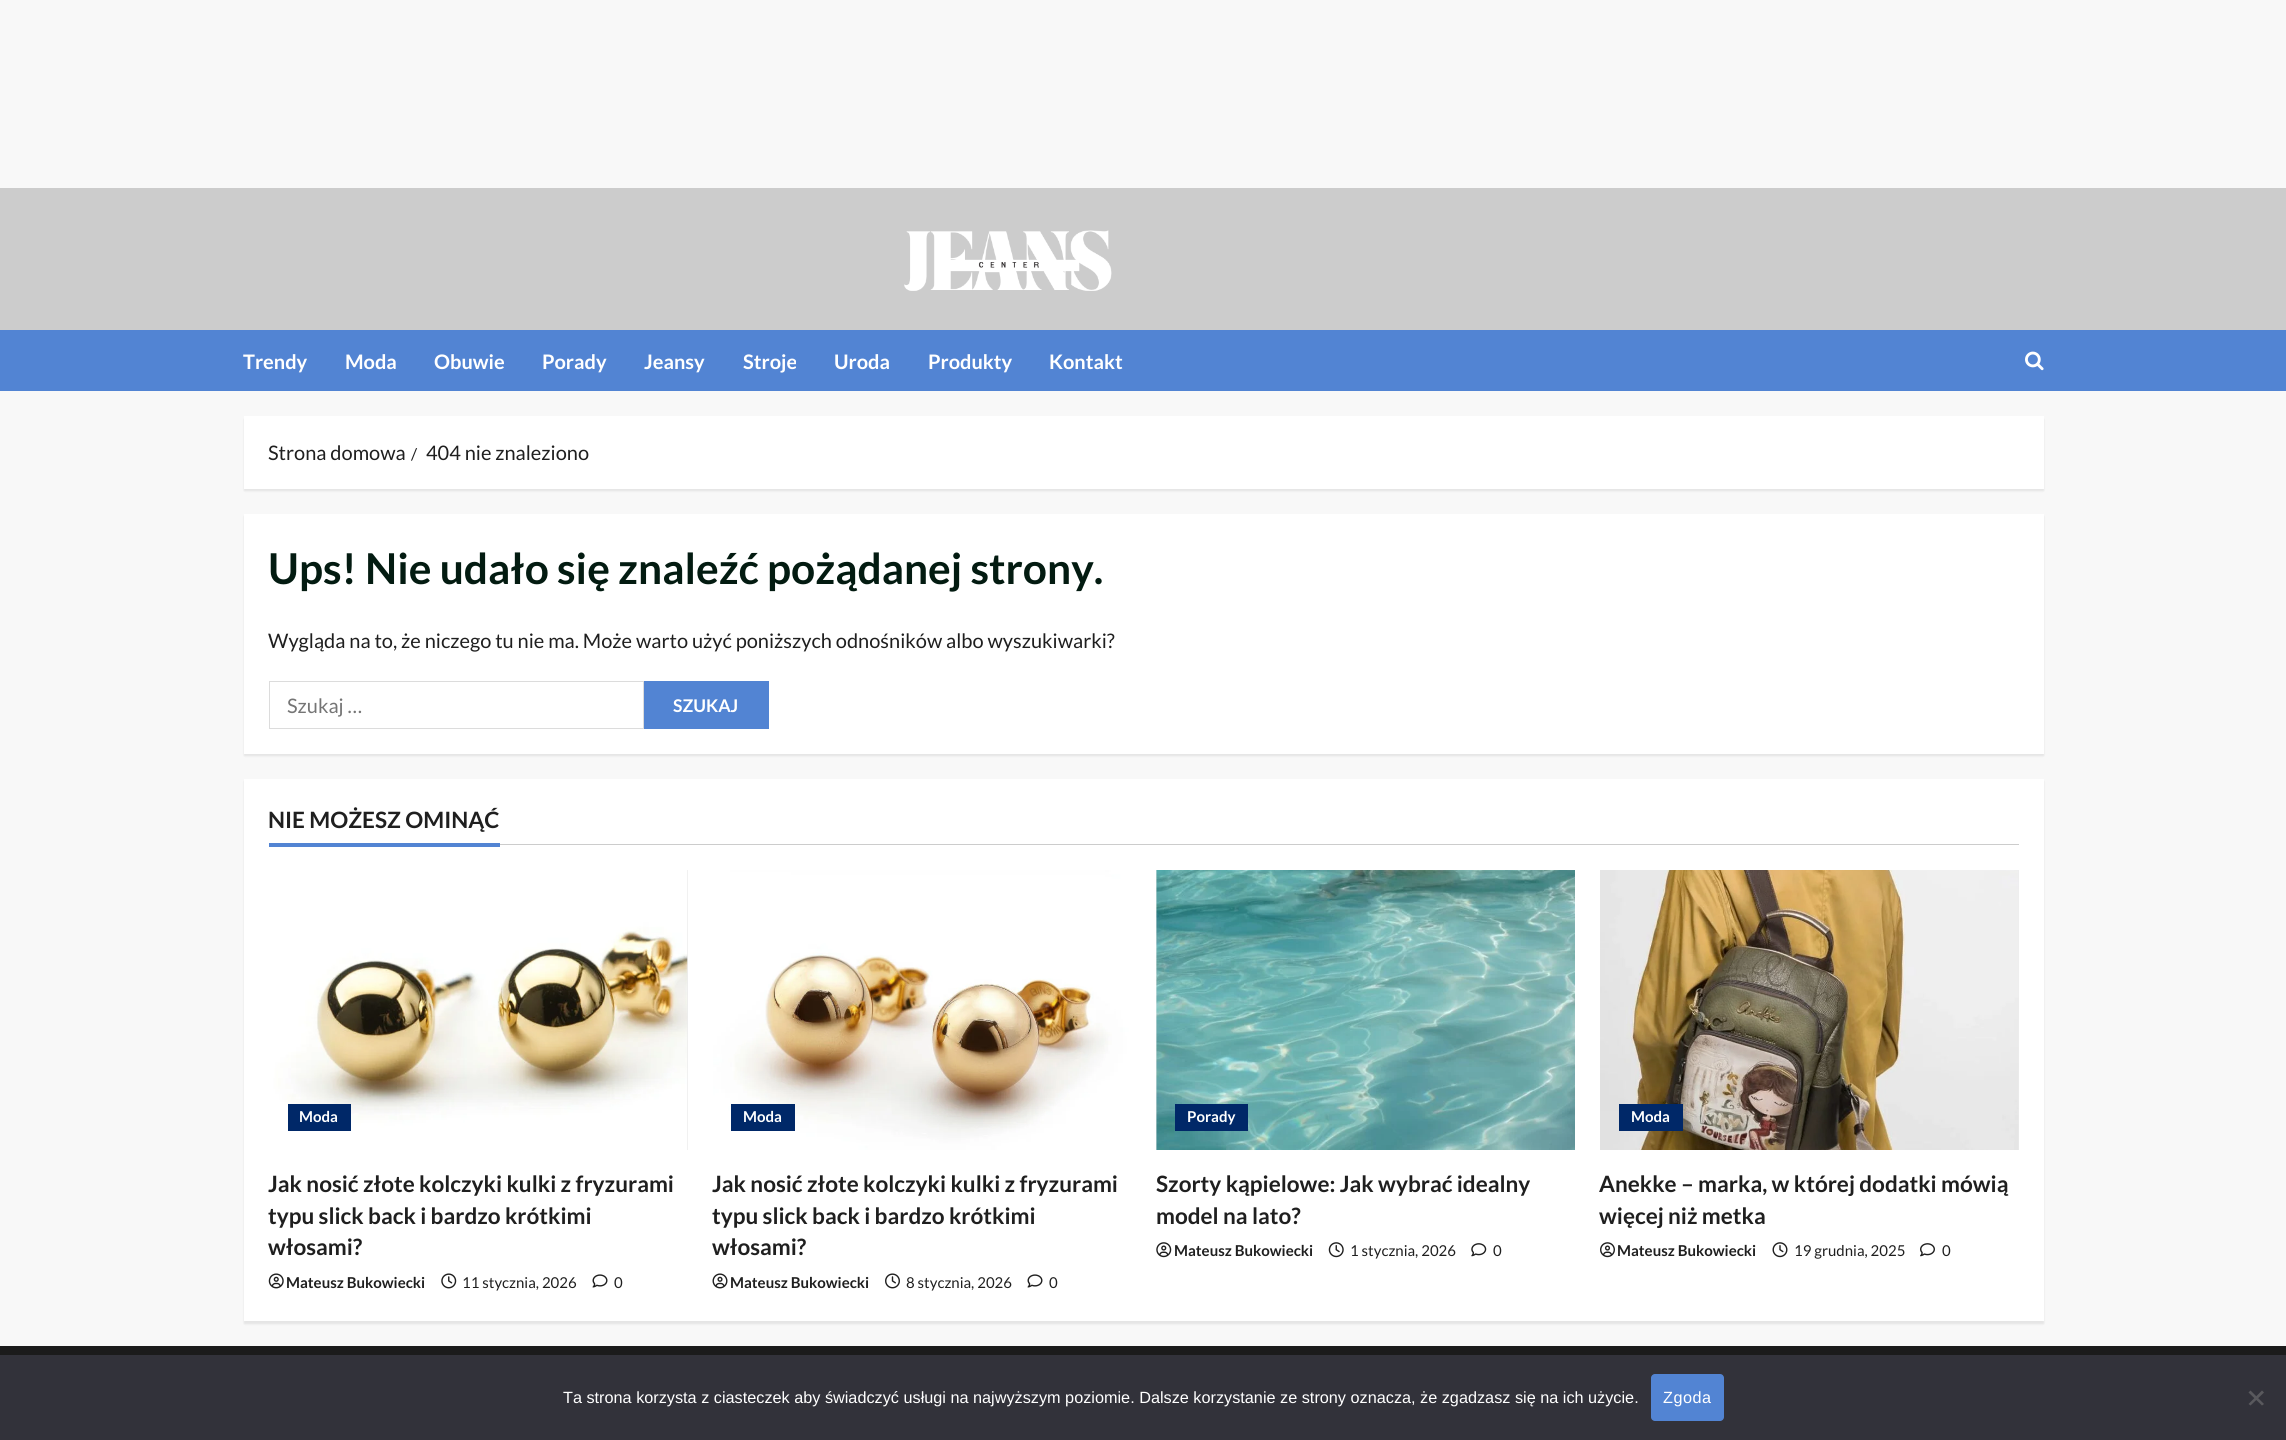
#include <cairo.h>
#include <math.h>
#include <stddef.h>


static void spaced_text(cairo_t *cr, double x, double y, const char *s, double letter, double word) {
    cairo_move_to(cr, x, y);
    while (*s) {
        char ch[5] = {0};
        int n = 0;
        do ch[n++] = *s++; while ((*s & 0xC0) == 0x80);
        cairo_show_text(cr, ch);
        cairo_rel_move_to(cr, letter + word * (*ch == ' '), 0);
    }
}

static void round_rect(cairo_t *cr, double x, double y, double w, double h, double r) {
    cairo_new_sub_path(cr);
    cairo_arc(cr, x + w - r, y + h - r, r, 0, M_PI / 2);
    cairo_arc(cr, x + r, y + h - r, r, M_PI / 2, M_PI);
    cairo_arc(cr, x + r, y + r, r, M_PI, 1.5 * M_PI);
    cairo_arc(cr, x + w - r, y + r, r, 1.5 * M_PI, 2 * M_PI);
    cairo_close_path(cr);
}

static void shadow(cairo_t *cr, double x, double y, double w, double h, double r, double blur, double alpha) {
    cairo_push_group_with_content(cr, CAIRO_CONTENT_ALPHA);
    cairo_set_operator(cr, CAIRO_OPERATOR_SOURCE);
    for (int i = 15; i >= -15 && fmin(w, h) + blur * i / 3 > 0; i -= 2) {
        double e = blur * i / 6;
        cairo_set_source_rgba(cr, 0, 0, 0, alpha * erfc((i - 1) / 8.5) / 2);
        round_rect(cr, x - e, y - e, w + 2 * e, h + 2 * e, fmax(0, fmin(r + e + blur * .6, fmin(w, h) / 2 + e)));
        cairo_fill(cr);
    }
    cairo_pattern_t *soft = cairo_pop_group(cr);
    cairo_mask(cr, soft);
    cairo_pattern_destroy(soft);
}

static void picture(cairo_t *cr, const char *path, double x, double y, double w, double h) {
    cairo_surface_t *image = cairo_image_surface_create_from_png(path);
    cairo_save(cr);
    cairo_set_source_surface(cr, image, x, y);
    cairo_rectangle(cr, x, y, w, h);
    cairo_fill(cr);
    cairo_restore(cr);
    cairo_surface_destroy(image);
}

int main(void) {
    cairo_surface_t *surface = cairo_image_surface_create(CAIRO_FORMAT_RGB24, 2286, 1440);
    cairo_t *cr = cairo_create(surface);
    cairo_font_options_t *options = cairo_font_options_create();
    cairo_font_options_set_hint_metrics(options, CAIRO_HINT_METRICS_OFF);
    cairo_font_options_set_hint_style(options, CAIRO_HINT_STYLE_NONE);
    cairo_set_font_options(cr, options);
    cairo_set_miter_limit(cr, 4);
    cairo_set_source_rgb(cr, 0.969, 0.969, 0.969);
    cairo_paint(cr);
    cairo_set_source_rgb(cr, 0.8, 0.8, 0.8);
    cairo_rectangle(cr, 0, 188, 2286, 142);
    cairo_fill(cr);
    picture(cr, "img1.png", 904, 230, 208, 61);
    cairo_set_source_rgb(cr, 0.322, 0.518, 0.827);
    cairo_rectangle(cr, 0, 330, 2286, 61);
    cairo_fill(cr);
    cairo_select_font_face(cr, "Lato", CAIRO_FONT_SLANT_NORMAL, CAIRO_FONT_WEIGHT_BOLD);
    cairo_set_font_size(cr, 20);
    cairo_set_source_rgb(cr, 1, 1, 1);
    cairo_move_to(cr, 243, 369);
    cairo_show_text(cr, "Trendy");
    cairo_move_to(cr, 345, 369);
    cairo_show_text(cr, "Moda");
    cairo_move_to(cr, 434, 369);
    cairo_show_text(cr, "Obuwie");
    cairo_move_to(cr, 542, 369);
    cairo_show_text(cr, "Porady");
    cairo_move_to(cr, 644, 369);
    cairo_show_text(cr, "Jeansy");
    cairo_move_to(cr, 743, 369);
    cairo_show_text(cr, "Stroje");
    cairo_move_to(cr, 834, 369);
    cairo_show_text(cr, "Uroda");
    cairo_move_to(cr, 928, 369);
    cairo_show_text(cr, "Produkty");
    cairo_move_to(cr, 1049, 369);
    cairo_show_text(cr, "Kontakt");
    picture(cr, "img2.png", 2025, 351, 19, 20);
    cairo_set_source_rgb(cr, 0, 0, 0);
    shadow(cr, 244, 419, 1800, 72, 0, 1, 0.08);
    cairo_set_source_rgb(cr, 1, 1, 1);
    cairo_rectangle(cr, 244, 416, 1800, 73);
    cairo_fill(cr);
    cairo_select_font_face(cr, "Lato", CAIRO_FONT_SLANT_NORMAL, CAIRO_FONT_WEIGHT_NORMAL);
    cairo_set_source_rgb(cr, 0.122, 0.122, 0.122);
    cairo_move_to(cr, 268, 460);
    cairo_show_text(cr, "Strona domowa");
    cairo_set_font_size(cr, 16.25);
    cairo_move_to(cr, 411, 460);
    cairo_show_text(cr, "/");
    cairo_set_font_size(cr, 20);
    cairo_move_to(cr, 426, 460);
    cairo_show_text(cr, "404 nie znaleziono");
    cairo_set_source_rgb(cr, 0, 0, 0);
    shadow(cr, 244, 516, 1800, 240, 0, 1, 0.08);
    cairo_set_source_rgb(cr, 1, 1, 1);
    cairo_rectangle(cr, 244, 514, 1800, 240);
    cairo_fill(cr);
    cairo_select_font_face(cr, "Lato", CAIRO_FONT_SLANT_NORMAL, CAIRO_FONT_WEIGHT_BOLD);
    cairo_set_font_size(cr, 42.5);
    cairo_set_source_rgb(cr, 0.012, 0.106, 0.067);
    cairo_move_to(cr, 268, 584);
    cairo_show_text(cr, "Ups! Nie udało się znaleźć pożądanej strony.");
    cairo_select_font_face(cr, "Lato", CAIRO_FONT_SLANT_NORMAL, CAIRO_FONT_WEIGHT_NORMAL);
    cairo_set_font_size(cr, 20);
    cairo_set_source_rgb(cr, 0.122, 0.122, 0.122);
    cairo_move_to(cr, 268, 648);
    cairo_show_text(cr, "Wygląda na to, że niczego tu nie ma. Może warto użyć poniższych odnośników albo wyszukiwarki?");
    cairo_rectangle(cr, 269.5, 681.5, 374, 47);
    cairo_set_source_rgb(cr, 0.863, 0.863, 0.863);
    cairo_set_line_width(cr, 1);
    cairo_stroke(cr);
    cairo_set_source_rgb(cr, 0.459, 0.459, 0.459);
    cairo_move_to(cr, 287, 713);
    cairo_show_text(cr, "Szukaj …");
    cairo_set_source_rgb(cr, 0.322, 0.518, 0.827);
    cairo_rectangle(cr, 644, 681, 125, 48);
    cairo_fill(cr);
    cairo_select_font_face(cr, "Lato", CAIRO_FONT_SLANT_NORMAL, CAIRO_FONT_WEIGHT_BOLD);
    cairo_set_font_size(cr, 17.5);
    cairo_set_source_rgb(cr, 1, 1, 1);
    cairo_move_to(cr, 673, 712);
    cairo_show_text(cr, "SZUKAJ");
    cairo_set_source_rgb(cr, 0, 0, 0);
    shadow(cr, 244, 781, 1800, 543, 0, 1, 0.08);
    cairo_set_source_rgb(cr, 1, 1, 1);
    cairo_rectangle(cr, 244, 779, 1800, 542);
    cairo_fill(cr);
    cairo_set_source_rgb(cr, 0.8, 0.8, 0.8);
    cairo_rectangle(cr, 500, 844, 1519, 1);
    cairo_fill(cr);
    cairo_set_font_size(cr, 22.5);
    cairo_set_source_rgb(cr, 0.122, 0.122, 0.122);
    cairo_move_to(cr, 268, 828);
    cairo_show_text(cr, "NIE MOŻESZ OMINĄĆ");
    cairo_set_source_rgb(cr, 0.322, 0.518, 0.827);
    cairo_rectangle(cr, 269, 843, 231, 4);
    cairo_fill(cr);
    cairo_set_source_rgb(cr, 0.925, 0.925, 0.925);
    cairo_rectangle(cr, 687, 870, 1, 280);
    cairo_fill(cr);
    picture(cr, "img3.png", 269, 870, 419, 280);
    cairo_set_source_rgb(cr, 0, 0.157, 0.408);
    cairo_rectangle(cr, 288, 1104, 63, 27);
    cairo_fill(cr);
    cairo_set_font_size(cr, 15);
    cairo_set_source_rgb(cr, 1, 1, 1);
    cairo_move_to(cr, 299, 1122);
    cairo_show_text(cr, "Moda");
    cairo_set_font_size(cr, 22.5);
    cairo_set_source_rgb(cr, 0.122, 0.122, 0.122);
    cairo_move_to(cr, 268, 1192);
    cairo_show_text(cr, "Jak nosić złote kolczyki kulki z fryzurami");
    cairo_move_to(cr, 268, 1224);
    cairo_show_text(cr, "typu slick back i bardzo krótkimi");
    cairo_move_to(cr, 268, 1255);
    cairo_show_text(cr, "włosami?");
    picture(cr, "img4.png", 268, 1273, 16, 16);
    cairo_set_font_size(cr, 15);
    cairo_move_to(cr, 286, 1288);
    cairo_show_text(cr, "Mateusz Bukowiecki");
    picture(cr, "img5.png", 441, 1273, 16, 16);
    cairo_select_font_face(cr, "Lato", CAIRO_FONT_SLANT_NORMAL, CAIRO_FONT_WEIGHT_NORMAL);
    cairo_move_to(cr, 462, 1288);
    cairo_show_text(cr, "11 stycznia, 2026");
    picture(cr, "img6.png", 592, 1274, 16, 14);
    cairo_move_to(cr, 614, 1288);
    cairo_show_text(cr, "0");
    picture(cr, "img7.png", 713, 870, 418, 280);
    cairo_set_source_rgb(cr, 0, 0.157, 0.408);
    cairo_rectangle(cr, 731, 1104, 64, 27);
    cairo_fill(cr);
    cairo_select_font_face(cr, "Lato", CAIRO_FONT_SLANT_NORMAL, CAIRO_FONT_WEIGHT_BOLD);
    cairo_set_source_rgb(cr, 1, 1, 1);
    cairo_move_to(cr, 743, 1122);
    cairo_show_text(cr, "Moda");
    cairo_set_font_size(cr, 22.5);
    cairo_set_source_rgb(cr, 0.122, 0.122, 0.122);
    cairo_move_to(cr, 712, 1192);
    cairo_show_text(cr, "Jak nosić złote kolczyki kulki z fryzurami");
    cairo_move_to(cr, 712, 1224);
    cairo_show_text(cr, "typu slick back i bardzo krótkimi");
    cairo_move_to(cr, 712, 1255);
    cairo_show_text(cr, "włosami?");
    picture(cr, "img8.png", 712, 1273, 16, 16);
    cairo_set_font_size(cr, 15);
    cairo_move_to(cr, 730, 1288);
    cairo_show_text(cr, "Mateusz Bukowiecki");
    picture(cr, "img9.png", 885, 1273, 15, 16);
    cairo_select_font_face(cr, "Lato", CAIRO_FONT_SLANT_NORMAL, CAIRO_FONT_WEIGHT_NORMAL);
    cairo_move_to(cr, 906, 1288);
    cairo_show_text(cr, "8 stycznia, 2026");
    picture(cr, "img6.png", 1027, 1274, 16, 14);
    cairo_move_to(cr, 1049, 1288);
    cairo_show_text(cr, "0");
    cairo_set_source_rgb(cr, 0.925, 0.925, 0.925);
    cairo_rectangle(cr, 1156, 870, 1, 280);
    cairo_fill(cr);
    picture(cr, "img10.png", 1156, 870, 419, 280);
    cairo_set_source_rgb(cr, 0, 0.157, 0.408);
    cairo_rectangle(cr, 1175, 1104, 73, 27);
    cairo_fill(cr);
    cairo_select_font_face(cr, "Lato", CAIRO_FONT_SLANT_NORMAL, CAIRO_FONT_WEIGHT_BOLD);
    cairo_set_source_rgb(cr, 1, 1, 1);
    cairo_move_to(cr, 1187, 1122);
    cairo_show_text(cr, "Porady");
    cairo_set_font_size(cr, 22.5);
    cairo_set_source_rgb(cr, 0.122, 0.122, 0.122);
    cairo_move_to(cr, 1156, 1192);
    cairo_show_text(cr, "Szorty kąpielowe: Jak wybrać idealny");
    cairo_move_to(cr, 1156, 1224);
    cairo_show_text(cr, "model na lato?");
    picture(cr, "img11.png", 1156, 1242, 16, 16);
    cairo_set_font_size(cr, 15);
    cairo_move_to(cr, 1174, 1256);
    cairo_show_text(cr, "Mateusz Bukowiecki");
    picture(cr, "img12.png", 1328, 1242, 16, 16);
    cairo_select_font_face(cr, "Lato", CAIRO_FONT_SLANT_NORMAL, CAIRO_FONT_WEIGHT_NORMAL);
    cairo_move_to(cr, 1350, 1256);
    cairo_show_text(cr, "1 stycznia, 2026");
    picture(cr, "img13.png", 1471, 1243, 16, 14);
    cairo_move_to(cr, 1493, 1256);
    cairo_show_text(cr, "0");
    cairo_set_source_rgb(cr, 0.925, 0.925, 0.925);
    cairo_rectangle(cr, 2018, 870, 1, 280);
    cairo_fill(cr);
    picture(cr, "img14.png", 1600, 870, 419, 280);
    cairo_set_source_rgb(cr, 0, 0.157, 0.408);
    cairo_rectangle(cr, 1619, 1104, 64, 27);
    cairo_fill(cr);
    cairo_select_font_face(cr, "Lato", CAIRO_FONT_SLANT_NORMAL, CAIRO_FONT_WEIGHT_BOLD);
    cairo_set_source_rgb(cr, 1, 1, 1);
    cairo_move_to(cr, 1631, 1122);
    cairo_show_text(cr, "Moda");
    cairo_set_font_size(cr, 22.5);
    cairo_set_source_rgb(cr, 0.122, 0.122, 0.122);
    cairo_move_to(cr, 1599, 1192);
    cairo_show_text(cr, "Anekke – marka, w której dodatki mówią");
    cairo_move_to(cr, 1599, 1224);
    cairo_show_text(cr, "więcej niż metka");
    picture(cr, "img15.png", 1600, 1242, 15, 16);
    cairo_set_font_size(cr, 15);
    cairo_move_to(cr, 1617, 1256);
    cairo_show_text(cr, "Mateusz Bukowiecki");
    picture(cr, "img16.png", 1772, 1242, 16, 16);
    cairo_select_font_face(cr, "Lato", CAIRO_FONT_SLANT_NORMAL, CAIRO_FONT_WEIGHT_NORMAL);
    cairo_move_to(cr, 1794, 1256);
    cairo_show_text(cr, "19 grudnia, 2025");
    picture(cr, "img17.png", 1920, 1243, 15, 14);
    cairo_move_to(cr, 1942, 1256);
    cairo_show_text(cr, "0");
    cairo_set_source_rgb(cr, 0.106, 0.106, 0.106);
    cairo_rectangle(cr, 0, 1346, 2286, 9);
    cairo_fill(cr);
    cairo_set_source_rgb(cr, 0.196, 0.196, 0.227);
    cairo_rectangle(cr, 0, 1355, 2286, 85);
    cairo_fill(cr);
    cairo_select_font_face(cr, "Liberation Sans", CAIRO_FONT_SLANT_NORMAL, CAIRO_FONT_WEIGHT_NORMAL);
    cairo_set_font_size(cr, 16.25);
    cairo_set_source_rgb(cr, 1, 1, 1);
    cairo_move_to(cr, 563, 1403);
    cairo_show_text(cr, "Ta strona korzysta z ciasteczek aby świadczyć usługi na najwyższym poziomie. Dalsze korzystanie ze strony oznacza, że zgadzasz się na ich użycie.");
    cairo_set_source_rgb(cr, 0.322, 0.518, 0.827);
    round_rect(cr, 1651, 1374, 73, 47, 4);
    cairo_fill(cr);
    cairo_set_source_rgb(cr, 1, 1, 1);
    spaced_text(cr, 1663, 1403, "Zgoda", 0.5, 0);
    cairo_set_source_rgb(cr, 0.349, 0.349, 0.365);
    cairo_new_path(cr);
    cairo_move_to(cr, 2262, 1390.5);
    cairo_line_to(cr, 2264, 1392.5);
    cairo_line_to(cr, 2250.5, 1405.5);
    cairo_line_to(cr, 2248.5, 1404);
    cairo_close_path(cr);
    cairo_fill(cr);
    cairo_new_path(cr);
    cairo_move_to(cr, 2248.5, 1392.5);
    cairo_line_to(cr, 2250.5, 1390.5);
    cairo_line_to(cr, 2264, 1404);
    cairo_line_to(cr, 2262, 1405.5);
    cairo_close_path(cr);
    cairo_fill(cr);
    cairo_surface_write_to_png(surface, "page.png");
    cairo_font_options_destroy(options);
    cairo_destroy(cr);
    cairo_surface_destroy(surface);
    return 0;
}
